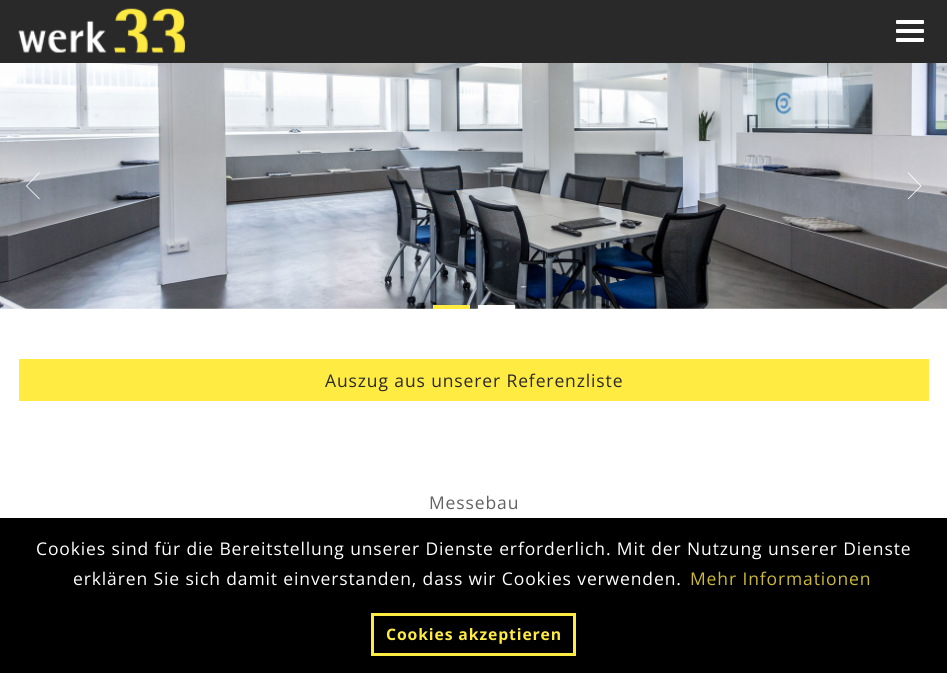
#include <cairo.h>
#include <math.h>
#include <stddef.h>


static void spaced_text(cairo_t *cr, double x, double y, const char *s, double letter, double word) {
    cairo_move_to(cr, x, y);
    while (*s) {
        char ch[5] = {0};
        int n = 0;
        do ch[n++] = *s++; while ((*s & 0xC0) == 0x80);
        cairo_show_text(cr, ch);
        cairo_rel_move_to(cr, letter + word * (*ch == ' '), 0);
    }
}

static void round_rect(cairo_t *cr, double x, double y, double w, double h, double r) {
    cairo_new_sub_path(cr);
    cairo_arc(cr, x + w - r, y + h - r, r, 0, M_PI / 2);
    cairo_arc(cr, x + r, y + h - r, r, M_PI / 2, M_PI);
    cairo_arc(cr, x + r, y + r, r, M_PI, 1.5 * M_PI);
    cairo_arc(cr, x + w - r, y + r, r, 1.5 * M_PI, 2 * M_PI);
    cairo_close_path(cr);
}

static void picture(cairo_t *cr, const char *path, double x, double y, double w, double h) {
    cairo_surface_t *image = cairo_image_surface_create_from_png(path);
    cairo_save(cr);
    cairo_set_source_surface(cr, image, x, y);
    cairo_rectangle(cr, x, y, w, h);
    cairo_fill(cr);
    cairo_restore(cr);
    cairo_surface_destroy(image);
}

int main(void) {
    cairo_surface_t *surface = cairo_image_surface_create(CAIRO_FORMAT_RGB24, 947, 673);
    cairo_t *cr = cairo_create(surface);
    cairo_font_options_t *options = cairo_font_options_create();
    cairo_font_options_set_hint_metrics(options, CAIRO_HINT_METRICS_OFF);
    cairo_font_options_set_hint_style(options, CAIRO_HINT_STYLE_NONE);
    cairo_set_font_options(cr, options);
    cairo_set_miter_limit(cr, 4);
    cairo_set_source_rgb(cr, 1, 1, 1);
    cairo_paint(cr);
    cairo_set_source_rgb(cr, 0.161, 0.161, 0.161);
    cairo_rectangle(cr, 0, 0, 947, 63);
    cairo_fill(cr);
    picture(cr, "img1.png", 18, 8, 167, 45);
    cairo_set_source_rgb(cr, 1, 1, 1);
    round_rect(cr, 896, 20, 28, 4, 1);
    cairo_fill(cr);
    round_rect(cr, 896, 29, 28, 4, 1);
    cairo_fill(cr);
    round_rect(cr, 896, 38, 28, 4, 1);
    cairo_fill(cr);
    picture(cr, "img2.png", 0, 63, 947, 246);
    cairo_new_path(cr);
    cairo_move_to(cr, 39.5, 172.5);
    cairo_line_to(cr, 26.5, 186);
    cairo_line_to(cr, 39.5, 199);
    cairo_set_line_width(cr, 0.8);
    cairo_stroke(cr);
    cairo_new_path(cr);
    cairo_move_to(cr, 908, 172.5);
    cairo_line_to(cr, 921, 186);
    cairo_line_to(cr, 908, 199);
    cairo_stroke(cr);
    cairo_set_source_rgb(cr, 1, 0.918, 0.259);
    cairo_rectangle(cr, 433, 305, 37, 4);
    cairo_fill(cr);
    cairo_set_source_rgb(cr, 1, 1, 1);
    cairo_rectangle(cr, 478, 305, 37, 4);
    cairo_fill(cr);
    cairo_set_source_rgb(cr, 1, 0.918, 0.259);
    cairo_rectangle(cr, 19, 359, 910, 42);
    cairo_fill(cr);
    cairo_select_font_face(cr, "Open Sans", CAIRO_FONT_SLANT_NORMAL, CAIRO_FONT_WEIGHT_NORMAL);
    cairo_set_font_size(cr, 17.5);
    cairo_set_source_rgb(cr, 0.161, 0.161, 0.161);
    spaced_text(cr, 325, 387, "Auszug aus unserer Referenzliste", 0.88, 0);
    cairo_set_source_rgb(cr, 0.384, 0.384, 0.384);
    spaced_text(cr, 429, 509, "Messebau", 0.88, 0);
    cairo_set_source_rgb(cr, 0, 0, 0);
    cairo_rectangle(cr, 0, 518, 947, 155);
    cairo_fill(cr);
    cairo_set_source_rgb(cr, 1, 1, 1);
    spaced_text(cr, 36, 555, "Cookies sind für die Bereitstellung unserer Dienste erforderlich. Mit der Nutzung unserer Dienste", 0.88, 0);
    spaced_text(cr, 73, 585, "erklären Sie sich damit einverstanden, dass wir Cookies verwenden.", 0.88, 0);
    cairo_set_source_rgb(cr, 0.8, 0.733, 0.208);
    spaced_text(cr, 690, 585, "Mehr Informationen", 0.88, 0);
    cairo_rectangle(cr, 372.5, 614.5, 202, 40);
    cairo_set_source_rgb(cr, 1, 0.918, 0.259);
    cairo_set_line_width(cr, 3);
    cairo_stroke(cr);
    cairo_select_font_face(cr, "Open Sans", CAIRO_FONT_SLANT_NORMAL, CAIRO_FONT_WEIGHT_BOLD);
    cairo_set_font_size(cr, 15.75);
    spaced_text(cr, 386, 640, "Cookies akzeptieren", 0.88, 0);
    cairo_surface_write_to_png(surface, "page.png");
    cairo_font_options_destroy(options);
    cairo_destroy(cr);
    cairo_surface_destroy(surface);
    return 0;
}
